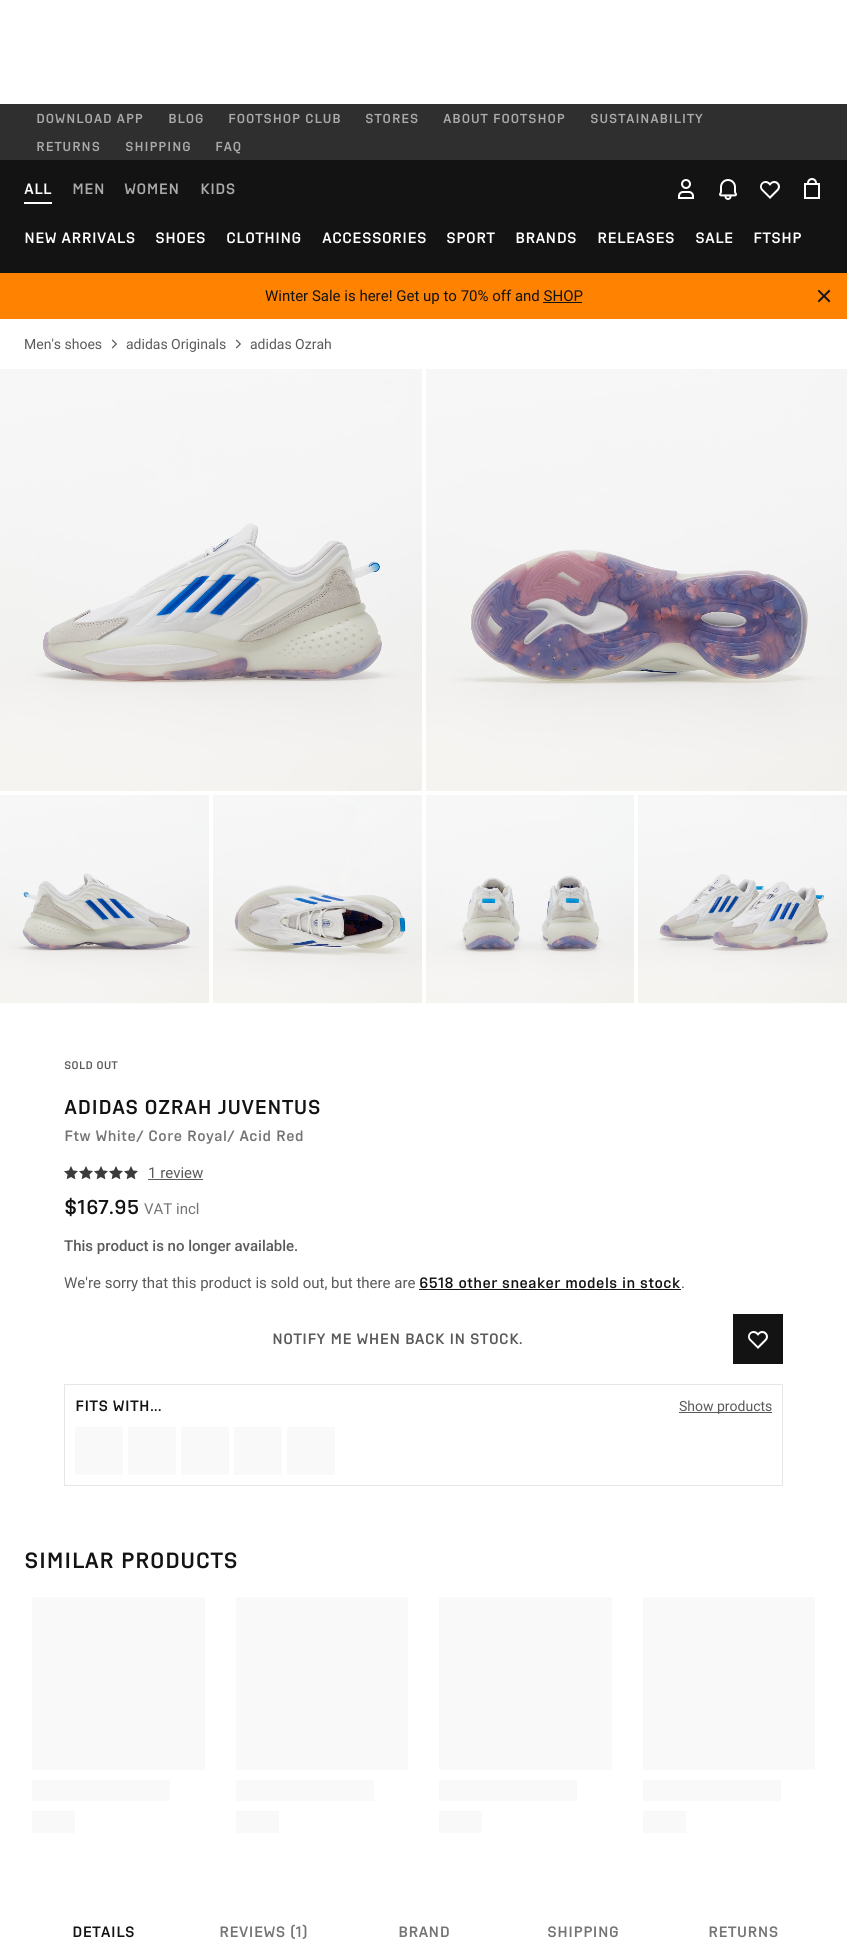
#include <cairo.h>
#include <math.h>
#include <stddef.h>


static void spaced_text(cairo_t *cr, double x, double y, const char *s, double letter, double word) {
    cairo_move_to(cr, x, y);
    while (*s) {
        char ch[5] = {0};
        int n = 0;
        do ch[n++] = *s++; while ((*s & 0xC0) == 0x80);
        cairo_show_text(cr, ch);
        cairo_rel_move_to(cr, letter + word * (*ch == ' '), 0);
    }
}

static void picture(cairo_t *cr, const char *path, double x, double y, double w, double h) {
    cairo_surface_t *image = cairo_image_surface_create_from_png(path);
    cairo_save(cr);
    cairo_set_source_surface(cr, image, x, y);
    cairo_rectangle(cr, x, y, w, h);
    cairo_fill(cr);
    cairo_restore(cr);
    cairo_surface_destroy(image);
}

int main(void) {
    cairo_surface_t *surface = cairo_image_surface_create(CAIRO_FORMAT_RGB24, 847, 1940);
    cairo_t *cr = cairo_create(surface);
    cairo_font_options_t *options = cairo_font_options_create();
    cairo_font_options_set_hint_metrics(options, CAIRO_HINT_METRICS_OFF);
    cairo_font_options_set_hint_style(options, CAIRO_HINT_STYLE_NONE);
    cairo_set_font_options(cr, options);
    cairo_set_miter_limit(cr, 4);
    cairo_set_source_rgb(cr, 1, 1, 1);
    cairo_paint(cr);
    cairo_set_source_rgb(cr, 0.184, 0.184, 0.184);
    cairo_rectangle(cr, 0, 104, 847, 56);
    cairo_fill(cr);
    cairo_select_font_face(cr, "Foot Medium", CAIRO_FONT_SLANT_NORMAL, CAIRO_FONT_WEIGHT_NORMAL);
    cairo_set_font_size(cr, 13);
    cairo_set_source_rgb(cr, 0.667, 0.667, 0.667);
    spaced_text(cr, 36, 123, "DOWNLOAD APP", 0.5, 0);
    spaced_text(cr, 168, 123, "BLOG", 0.5, 0);
    spaced_text(cr, 228, 123, "FOOTSHOP CLUB", 0.5, 0);
    spaced_text(cr, 365, 123, "STORES", 0.5, 0);
    spaced_text(cr, 443, 123, "ABOUT FOOTSHOP", 0.5, 0);
    spaced_text(cr, 590, 123, "SUSTAINABILITY", 0.5, 0);
    spaced_text(cr, 36, 151, "RETURNS", 0.5, 0);
    spaced_text(cr, 125, 151, "SHIPPING", 0.5, 0);
    spaced_text(cr, 215, 151, "FAQ", 0.5, 0);
    cairo_set_source_rgb(cr, 0.078, 0.078, 0.078);
    cairo_rectangle(cr, 0, 160, 847, 113);
    cairo_fill(cr);
    cairo_set_font_size(cr, 15);
    cairo_set_source_rgb(cr, 1, 1, 1);
    cairo_move_to(cr, 24, 194);
    cairo_show_text(cr, "ALL");
    cairo_rectangle(cr, 24, 202, 28, 2);
    cairo_fill(cr);
    cairo_set_source_rgb(cr, 0.667, 0.667, 0.667);
    cairo_move_to(cr, 72, 194);
    cairo_show_text(cr, "MEN");
    cairo_move_to(cr, 124, 194);
    cairo_show_text(cr, "WOMEN");
    cairo_move_to(cr, 200, 194);
    cairo_show_text(cr, "KIDS");
    picture(cr, "img1.png", 678, 179, 16, 20);
    picture(cr, "img2.png", 719, 179, 18, 21);
    picture(cr, "img3.png", 760, 181, 20, 18);
    picture(cr, "img4.png", 804, 178, 16, 21);
    cairo_set_source_rgb(cr, 1, 1, 1);
    cairo_move_to(cr, 24, 243);
    cairo_show_text(cr, "NEW ARRIVALS");
    cairo_move_to(cr, 155, 243);
    cairo_show_text(cr, "SHOES");
    cairo_move_to(cr, 226, 243);
    cairo_show_text(cr, "CLOTHING");
    cairo_move_to(cr, 322, 243);
    cairo_show_text(cr, "ACCESSORIES");
    cairo_move_to(cr, 446, 243);
    cairo_show_text(cr, "SPORT");
    cairo_move_to(cr, 515, 243);
    cairo_show_text(cr, "BRANDS");
    cairo_move_to(cr, 597, 243);
    cairo_show_text(cr, "RELEASES");
    cairo_move_to(cr, 695, 243);
    cairo_show_text(cr, "SALE");
    cairo_move_to(cr, 753, 243);
    cairo_show_text(cr, "FTSHP");
    cairo_set_source_rgb(cr, 1, 0.51, 0);
    cairo_rectangle(cr, 0, 273, 847, 46);
    cairo_fill(cr);
    cairo_select_font_face(cr, "Roboto", CAIRO_FONT_SLANT_NORMAL, CAIRO_FONT_WEIGHT_NORMAL);
    cairo_set_source_rgb(cr, 0.078, 0.078, 0.078);
    cairo_move_to(cr, 265, 301);
    cairo_show_text(cr, "Winter Sale is here! Get up to 70% off and SHOP");
    cairo_rectangle(cr, 543, 302, 39, 1);
    cairo_fill(cr);
    picture(cr, "img5.png", 817, 289, 14, 14);
    cairo_set_font_size(cr, 14);
    cairo_set_source_rgb(cr, 0.353, 0.353, 0.353);
    cairo_move_to(cr, 24, 349);
    cairo_show_text(cr, "Men's shoes");
    picture(cr, "img6.png", 111, 339, 6, 10);
    cairo_move_to(cr, 126, 349);
    cairo_show_text(cr, "adidas Originals");
    picture(cr, "img6.png", 235, 339, 6, 10);
    cairo_move_to(cr, 250, 349);
    cairo_show_text(cr, "adidas Ozrah");
    picture(cr, "img7.png", 0, 369, 422, 422);
    picture(cr, "img8.png", 426, 369, 421, 422);
    picture(cr, "img9.png", 0, 795, 209, 208);
    picture(cr, "img10.png", 213, 795, 209, 208);
    picture(cr, "img11.png", 426, 795, 208, 208);
    picture(cr, "img12.png", 638, 795, 209, 208);
    cairo_select_font_face(cr, "Foot Medium", CAIRO_FONT_SLANT_NORMAL, CAIRO_FONT_WEIGHT_NORMAL);
    cairo_set_font_size(cr, 11);
    cairo_move_to(cr, 64, 1069);
    cairo_show_text(cr, "SOLD OUT");
    cairo_set_font_size(cr, 20);
    cairo_set_source_rgb(cr, 0.078, 0.078, 0.078);
    cairo_move_to(cr, 64, 1114);
    cairo_show_text(cr, "ADIDAS OZRAH JUVENTUS");
    cairo_set_font_size(cr, 15);
    cairo_set_source_rgb(cr, 0.455, 0.455, 0.455);
    cairo_move_to(cr, 64, 1141);
    cairo_show_text(cr, "Ftw White/ Core Royal/ Acid Red");
    picture(cr, "img13.png", 64, 1166, 14, 14);
    picture(cr, "img13.png", 79, 1166, 14, 14);
    picture(cr, "img13.png", 94, 1166, 14, 14);
    picture(cr, "img13.png", 109, 1166, 14, 14);
    picture(cr, "img13.png", 124, 1166, 14, 14);
    cairo_select_font_face(cr, "Roboto", CAIRO_FONT_SLANT_NORMAL, CAIRO_FONT_WEIGHT_NORMAL);
    cairo_set_source_rgb(cr, 0.353, 0.353, 0.353);
    cairo_move_to(cr, 148, 1178);
    cairo_show_text(cr, "1 review");
    cairo_rectangle(cr, 148, 1179, 55, 1);
    cairo_fill(cr);
    cairo_select_font_face(cr, "Foot Medium", CAIRO_FONT_SLANT_NORMAL, CAIRO_FONT_WEIGHT_NORMAL);
    cairo_set_font_size(cr, 20);
    cairo_set_source_rgb(cr, 0.078, 0.078, 0.078);
    cairo_move_to(cr, 64, 1214);
    cairo_show_text(cr, "$167.95");
    cairo_select_font_face(cr, "Roboto", CAIRO_FONT_SLANT_NORMAL, CAIRO_FONT_WEIGHT_NORMAL);
    cairo_set_font_size(cr, 15);
    cairo_set_source_rgb(cr, 0.455, 0.455, 0.455);
    cairo_move_to(cr, 144, 1214);
    cairo_show_text(cr, "VAT incl");
    cairo_select_font_face(cr, "Roboto Medium", CAIRO_FONT_SLANT_NORMAL, CAIRO_FONT_WEIGHT_NORMAL);
    cairo_set_source_rgb(cr, 0.353, 0.353, 0.353);
    cairo_move_to(cr, 64, 1251);
    cairo_show_text(cr, "This product is no longer available.");
    cairo_select_font_face(cr, "Roboto", CAIRO_FONT_SLANT_NORMAL, CAIRO_FONT_WEIGHT_NORMAL);
    cairo_move_to(cr, 64, 1288);
    cairo_show_text(cr, "We're sorry that this product is sold out, but there are");
    cairo_select_font_face(cr, "Foot Medium", CAIRO_FONT_SLANT_NORMAL, CAIRO_FONT_WEIGHT_NORMAL);
    cairo_set_source_rgb(cr, 0.078, 0.078, 0.078);
    cairo_move_to(cr, 419, 1288);
    cairo_show_text(cr, "6518 other sneaker models in stock");
    cairo_rectangle(cr, 419, 1289, 262, 1);
    cairo_fill(cr);
    cairo_select_font_face(cr, "Roboto", CAIRO_FONT_SLANT_NORMAL, CAIRO_FONT_WEIGHT_NORMAL);
    cairo_set_source_rgb(cr, 0.353, 0.353, 0.353);
    cairo_move_to(cr, 681, 1288);
    cairo_show_text(cr, ".");
    cairo_select_font_face(cr, "Foot Medium", CAIRO_FONT_SLANT_NORMAL, CAIRO_FONT_WEIGHT_NORMAL);
    cairo_move_to(cr, 272, 1344);
    cairo_show_text(cr, "NOTIFY ME WHEN BACK IN STOCK.");
    cairo_set_source_rgb(cr, 0.078, 0.078, 0.078);
    cairo_rectangle(cr, 733, 1314, 50, 50);
    cairo_fill(cr);
    picture(cr, "img3.png", 748, 1331, 20, 18);
    cairo_rectangle(cr, 64.5, 1384.5, 718, 101);
    cairo_set_source_rgb(cr, 0.902, 0.902, 0.902);
    cairo_set_line_width(cr, 1);
    cairo_stroke(cr);
    cairo_set_source_rgb(cr, 0.078, 0.078, 0.078);
    cairo_move_to(cr, 75, 1411);
    cairo_show_text(cr, "FITS WITH...");
    cairo_set_source_rgb(cr, 0.353, 0.353, 0.353);
    cairo_rectangle(cr, 679, 1412, 93, 1);
    cairo_fill(cr);
    cairo_select_font_face(cr, "Roboto", CAIRO_FONT_SLANT_NORMAL, CAIRO_FONT_WEIGHT_NORMAL);
    cairo_set_font_size(cr, 14);
    cairo_move_to(cr, 679, 1411);
    cairo_show_text(cr, "Show products");
    cairo_set_source_rgb(cr, 0.973, 0.973, 0.973);
    cairo_rectangle(cr, 75, 1427, 48, 48);
    cairo_fill(cr);
    cairo_rectangle(cr, 128, 1427, 48, 48);
    cairo_fill(cr);
    cairo_rectangle(cr, 181, 1427, 48, 48);
    cairo_fill(cr);
    cairo_rectangle(cr, 234, 1427, 48, 48);
    cairo_fill(cr);
    cairo_rectangle(cr, 287, 1427, 48, 48);
    cairo_fill(cr);
    cairo_select_font_face(cr, "Foot Medium", CAIRO_FONT_SLANT_NORMAL, CAIRO_FONT_WEIGHT_NORMAL);
    cairo_set_font_size(cr, 22);
    cairo_set_source_rgb(cr, 0.078, 0.078, 0.078);
    cairo_move_to(cr, 24, 1568);
    cairo_show_text(cr, "SIMILAR PRODUCTS");
    cairo_set_source_rgb(cr, 0.973, 0.973, 0.973);
    cairo_rectangle(cr, 32, 1597, 173, 173);
    cairo_fill(cr);
    cairo_rectangle(cr, 32, 1780, 138, 21);
    cairo_fill(cr);
    cairo_rectangle(cr, 32, 1811, 43, 22);
    cairo_fill(cr);
    cairo_rectangle(cr, 236, 1597, 172, 173);
    cairo_fill(cr);
    cairo_rectangle(cr, 236, 1780, 138, 21);
    cairo_fill(cr);
    cairo_rectangle(cr, 236, 1811, 43, 22);
    cairo_fill(cr);
    cairo_rectangle(cr, 439, 1597, 173, 173);
    cairo_fill(cr);
    cairo_rectangle(cr, 439, 1780, 138, 21);
    cairo_fill(cr);
    cairo_rectangle(cr, 439, 1811, 43, 22);
    cairo_fill(cr);
    cairo_rectangle(cr, 643, 1597, 172, 173);
    cairo_fill(cr);
    cairo_rectangle(cr, 643, 1780, 138, 21);
    cairo_fill(cr);
    cairo_rectangle(cr, 643, 1811, 43, 22);
    cairo_fill(cr);
    cairo_set_font_size(cr, 15);
    cairo_set_source_rgb(cr, 0.078, 0.078, 0.078);
    cairo_move_to(cr, 72, 1937);
    cairo_show_text(cr, "DETAILS");
    cairo_set_source_rgb(cr, 0.455, 0.455, 0.455);
    cairo_move_to(cr, 219, 1937);
    cairo_show_text(cr, "REVIEWS (1)");
    cairo_move_to(cr, 398, 1937);
    cairo_show_text(cr, "BRAND");
    cairo_move_to(cr, 547, 1937);
    cairo_show_text(cr, "SHIPPING");
    cairo_move_to(cr, 708, 1937);
    cairo_show_text(cr, "RETURNS");
    cairo_surface_write_to_png(surface, "page.png");
    cairo_font_options_destroy(options);
    cairo_destroy(cr);
    cairo_surface_destroy(surface);
    return 0;
}
